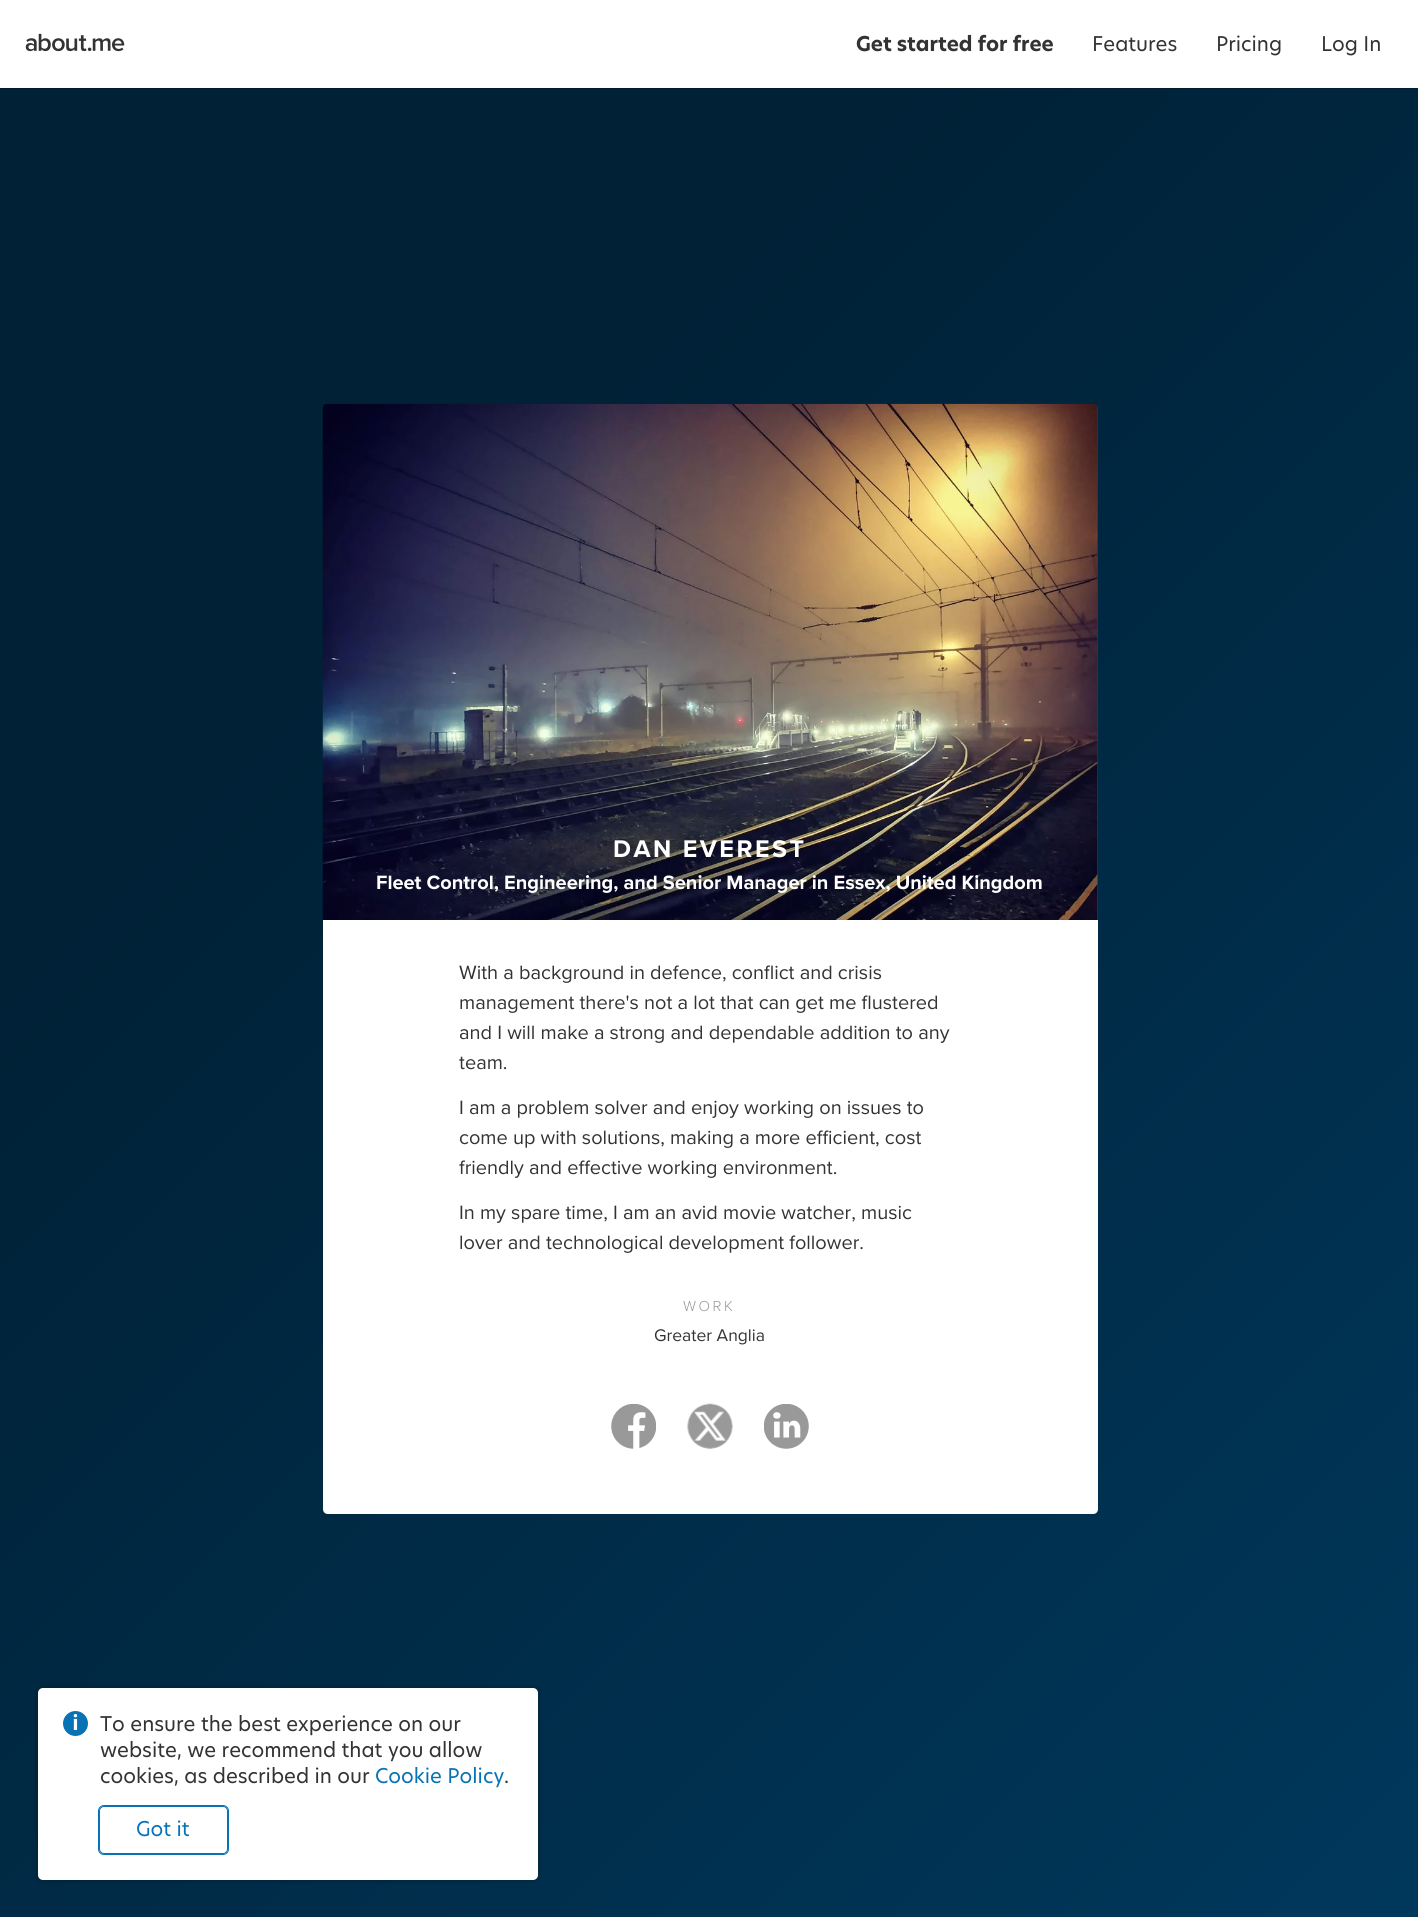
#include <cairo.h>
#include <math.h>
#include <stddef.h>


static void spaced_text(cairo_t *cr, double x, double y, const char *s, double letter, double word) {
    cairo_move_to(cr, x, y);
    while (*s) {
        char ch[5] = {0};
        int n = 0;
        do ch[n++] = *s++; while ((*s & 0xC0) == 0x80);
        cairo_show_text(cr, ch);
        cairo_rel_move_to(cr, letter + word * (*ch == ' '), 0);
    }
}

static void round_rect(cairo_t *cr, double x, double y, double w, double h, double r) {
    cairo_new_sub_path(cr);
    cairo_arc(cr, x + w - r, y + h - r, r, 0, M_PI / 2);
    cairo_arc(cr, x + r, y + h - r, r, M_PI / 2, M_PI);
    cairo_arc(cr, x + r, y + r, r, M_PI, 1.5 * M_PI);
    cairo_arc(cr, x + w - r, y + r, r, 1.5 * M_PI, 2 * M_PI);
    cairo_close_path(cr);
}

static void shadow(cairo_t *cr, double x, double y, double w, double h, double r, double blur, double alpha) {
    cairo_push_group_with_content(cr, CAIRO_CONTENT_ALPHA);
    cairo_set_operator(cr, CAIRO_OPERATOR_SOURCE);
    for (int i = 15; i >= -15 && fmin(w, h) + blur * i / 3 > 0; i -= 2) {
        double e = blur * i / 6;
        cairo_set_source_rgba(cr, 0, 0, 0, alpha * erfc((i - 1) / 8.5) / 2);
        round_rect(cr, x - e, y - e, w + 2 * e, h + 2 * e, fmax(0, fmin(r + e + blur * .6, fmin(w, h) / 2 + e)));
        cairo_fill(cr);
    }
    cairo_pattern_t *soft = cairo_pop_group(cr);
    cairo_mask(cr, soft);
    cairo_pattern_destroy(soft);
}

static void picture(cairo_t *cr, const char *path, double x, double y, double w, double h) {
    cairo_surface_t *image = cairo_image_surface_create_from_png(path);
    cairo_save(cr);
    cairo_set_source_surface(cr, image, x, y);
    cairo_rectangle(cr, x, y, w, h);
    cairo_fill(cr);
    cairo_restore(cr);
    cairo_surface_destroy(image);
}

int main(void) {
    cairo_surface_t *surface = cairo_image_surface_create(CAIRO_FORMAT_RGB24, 1418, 1917);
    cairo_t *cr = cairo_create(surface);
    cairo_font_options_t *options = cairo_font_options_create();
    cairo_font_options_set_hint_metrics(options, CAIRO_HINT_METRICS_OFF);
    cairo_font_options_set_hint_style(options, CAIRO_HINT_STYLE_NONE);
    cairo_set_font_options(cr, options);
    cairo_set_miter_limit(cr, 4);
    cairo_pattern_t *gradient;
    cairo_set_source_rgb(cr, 1, 1, 1);
    cairo_paint(cr);
    gradient = cairo_pattern_create_linear(-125, 125, 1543, 1793);
    cairo_pattern_add_color_stop_rgba(gradient, 0, 0, 0.129, 0.212, 1);
    cairo_pattern_add_color_stop_rgba(gradient, 0.3, 0, 0.129, 0.212, 1);
    cairo_pattern_add_color_stop_rgba(gradient, 1, 0, 0.22, 0.361, 1);
    cairo_set_source(cr, gradient);
    cairo_pattern_destroy(gradient);
    cairo_rectangle(cr, 0, 88, 1418, 1829);
    cairo_fill(cr);
    cairo_set_source_rgba(cr, 0, 0, 0, 0.2);
    cairo_new_path(cr);
    cairo_move_to(cr, 0, 88);
    cairo_line_to(cr, 0, 89);
    cairo_line_to(cr, 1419, 89);
    cairo_line_to(cr, 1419, 1);
    cairo_line_to(cr, 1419, 88);
    cairo_close_path(cr);
    cairo_fill(cr);
    picture(cr, "img1.png", 25, 33, 100, 19);
    cairo_select_font_face(cr, "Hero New", CAIRO_FONT_SLANT_NORMAL, CAIRO_FONT_WEIGHT_BOLD);
    cairo_set_font_size(cr, 20);
    cairo_set_source_rgb(cr, 0.2, 0.2, 0.2);
    cairo_move_to(cr, 856, 51);
    cairo_show_text(cr, "Get started for free");
    cairo_select_font_face(cr, "Hero New", CAIRO_FONT_SLANT_NORMAL, CAIRO_FONT_WEIGHT_NORMAL);
    cairo_move_to(cr, 1092, 51);
    cairo_show_text(cr, "Features");
    cairo_move_to(cr, 1216, 51);
    cairo_show_text(cr, "Pricing");
    cairo_move_to(cr, 1321, 51);
    cairo_show_text(cr, "Log In");
    cairo_set_source_rgba(cr, 1, 1, 1, 0.1);
    cairo_new_path(cr);
    cairo_move_to(cr, 328, 404);
    cairo_line_to(cr, 1093, 404);
    cairo_curve_to(cr, 1096, 404, 1098, 406, 1098, 409);
    cairo_line_to(cr, 1098, 920);
    cairo_line_to(cr, 323, 920);
    cairo_line_to(cr, 323, 409);
    cairo_curve_to(cr, 323, 406, 325, 404, 328, 404);
    cairo_close_path(cr);
    cairo_fill(cr);
    picture(cr, "img2.png", 322, 403, 776, 517);
    cairo_select_font_face(cr, "Proxima Nova", CAIRO_FONT_SLANT_NORMAL, CAIRO_FONT_WEIGHT_BOLD);
    cairo_set_font_size(cr, 25);
    cairo_set_source_rgb(cr, 1, 1, 1);
    spaced_text(cr, 613, 857, "DAN EVEREST", 2.5, 0);
    cairo_set_font_size(cr, 20);
    cairo_move_to(cr, 376, 889);
    cairo_show_text(cr, "Fleet Control, Engineering, and Senior Manager in Essex, United Kingdom");
    cairo_new_path(cr);
    cairo_move_to(cr, 323, 920);
    cairo_line_to(cr, 1098, 920);
    cairo_line_to(cr, 1098, 1509);
    cairo_curve_to(cr, 1098, 1512, 1096, 1514, 1093, 1514);
    cairo_line_to(cr, 328, 1514);
    cairo_curve_to(cr, 325, 1514, 323, 1512, 323, 1509);
    cairo_close_path(cr);
    cairo_fill(cr);
    cairo_select_font_face(cr, "Proxima Nova", CAIRO_FONT_SLANT_NORMAL, CAIRO_FONT_WEIGHT_NORMAL);
    cairo_set_source_rgb(cr, 0.2, 0.2, 0.2);
    cairo_move_to(cr, 459, 979);
    cairo_show_text(cr, "With a background in defence, conflict and crisis");
    cairo_move_to(cr, 459, 1009);
    cairo_show_text(cr, "management there's not a lot that can get me flustered");
    cairo_move_to(cr, 459, 1039);
    cairo_show_text(cr, "and I will make a strong and dependable addition to any");
    cairo_move_to(cr, 459, 1069);
    cairo_show_text(cr, "team.");
    cairo_move_to(cr, 459, 1114);
    cairo_show_text(cr, "I am a problem solver and enjoy working on issues to");
    cairo_move_to(cr, 459, 1144);
    cairo_show_text(cr, "come up with solutions, making a more efficient, cost");
    cairo_move_to(cr, 459, 1174);
    cairo_show_text(cr, "friendly and effective working environment.");
    cairo_move_to(cr, 459, 1219);
    cairo_show_text(cr, "In my spare time, I am an avid movie watcher, music");
    cairo_move_to(cr, 459, 1249);
    cairo_show_text(cr, "lover and technological development follower.");
    cairo_select_font_face(cr, "Proxima Nova Light", CAIRO_FONT_SLANT_NORMAL, CAIRO_FONT_WEIGHT_NORMAL);
    cairo_set_font_size(cr, 15);
    cairo_set_source_rgb(cr, 0.6, 0.6, 0.6);
    spaced_text(cr, 683, 1311, "WORK", 2.5, 0);
    cairo_select_font_face(cr, "Proxima Nova", CAIRO_FONT_SLANT_NORMAL, CAIRO_FONT_WEIGHT_NORMAL);
    cairo_set_font_size(cr, 17.5);
    cairo_set_source_rgb(cr, 0.2, 0.2, 0.2);
    cairo_move_to(cr, 654, 1341);
    cairo_show_text(cr, "Greater Anglia");
    picture(cr, "img3.png", 611, 1404, 45, 45);
    picture(cr, "img4.png", 687, 1403, 46, 46);
    picture(cr, "img5.png", 764, 1404, 45, 45);
    cairo_set_source_rgb(cr, 0, 0, 0);
    shadow(cr, 38, 1688, 500, 192, 5, 3, 0.3);
    cairo_set_source_rgb(cr, 1, 1, 1);
    round_rect(cr, 38, 1688, 500, 192, 5);
    cairo_fill(cr);
    cairo_set_source_rgb(cr, 0.031, 0.447, 0.706);
    cairo_arc(cr, 75.5, 1723.5, 12.5, 0, 2 * M_PI);
    cairo_fill(cr);
    picture(cr, "img6.png", 73, 1714, 5, 16);
    cairo_select_font_face(cr, "Hero New", CAIRO_FONT_SLANT_NORMAL, CAIRO_FONT_WEIGHT_NORMAL);
    cairo_set_font_size(cr, 20);
    cairo_set_source_rgb(cr, 0.2, 0.2, 0.2);
    cairo_move_to(cr, 100, 1731);
    cairo_show_text(cr, "To ensure the best experience on our");
    cairo_move_to(cr, 100, 1757);
    cairo_show_text(cr, "website, we recommend that you allow");
    cairo_move_to(cr, 100, 1783);
    cairo_show_text(cr, "cookies, as described in our");
    cairo_set_source_rgb(cr, 0.031, 0.447, 0.706);
    cairo_move_to(cr, 375, 1783);
    cairo_show_text(cr, "Cookie Policy");
    cairo_set_source_rgb(cr, 0.2, 0.2, 0.2);
    cairo_move_to(cr, 504, 1783);
    cairo_show_text(cr, ".");
    round_rect(cr, 99.5, 1806.5, 128, 47, 4.5);
    cairo_set_source_rgb(cr, 0.031, 0.447, 0.706);
    cairo_set_line_width(cr, 1);
    cairo_stroke(cr);
    round_rect(cr, 98.5, 1805.5, 130, 49, 5.5);
    cairo_stroke(cr);
    cairo_move_to(cr, 136, 1836);
    cairo_show_text(cr, "Got it");
    cairo_surface_write_to_png(surface, "page.png");
    cairo_font_options_destroy(options);
    cairo_destroy(cr);
    cairo_surface_destroy(surface);
    return 0;
}
